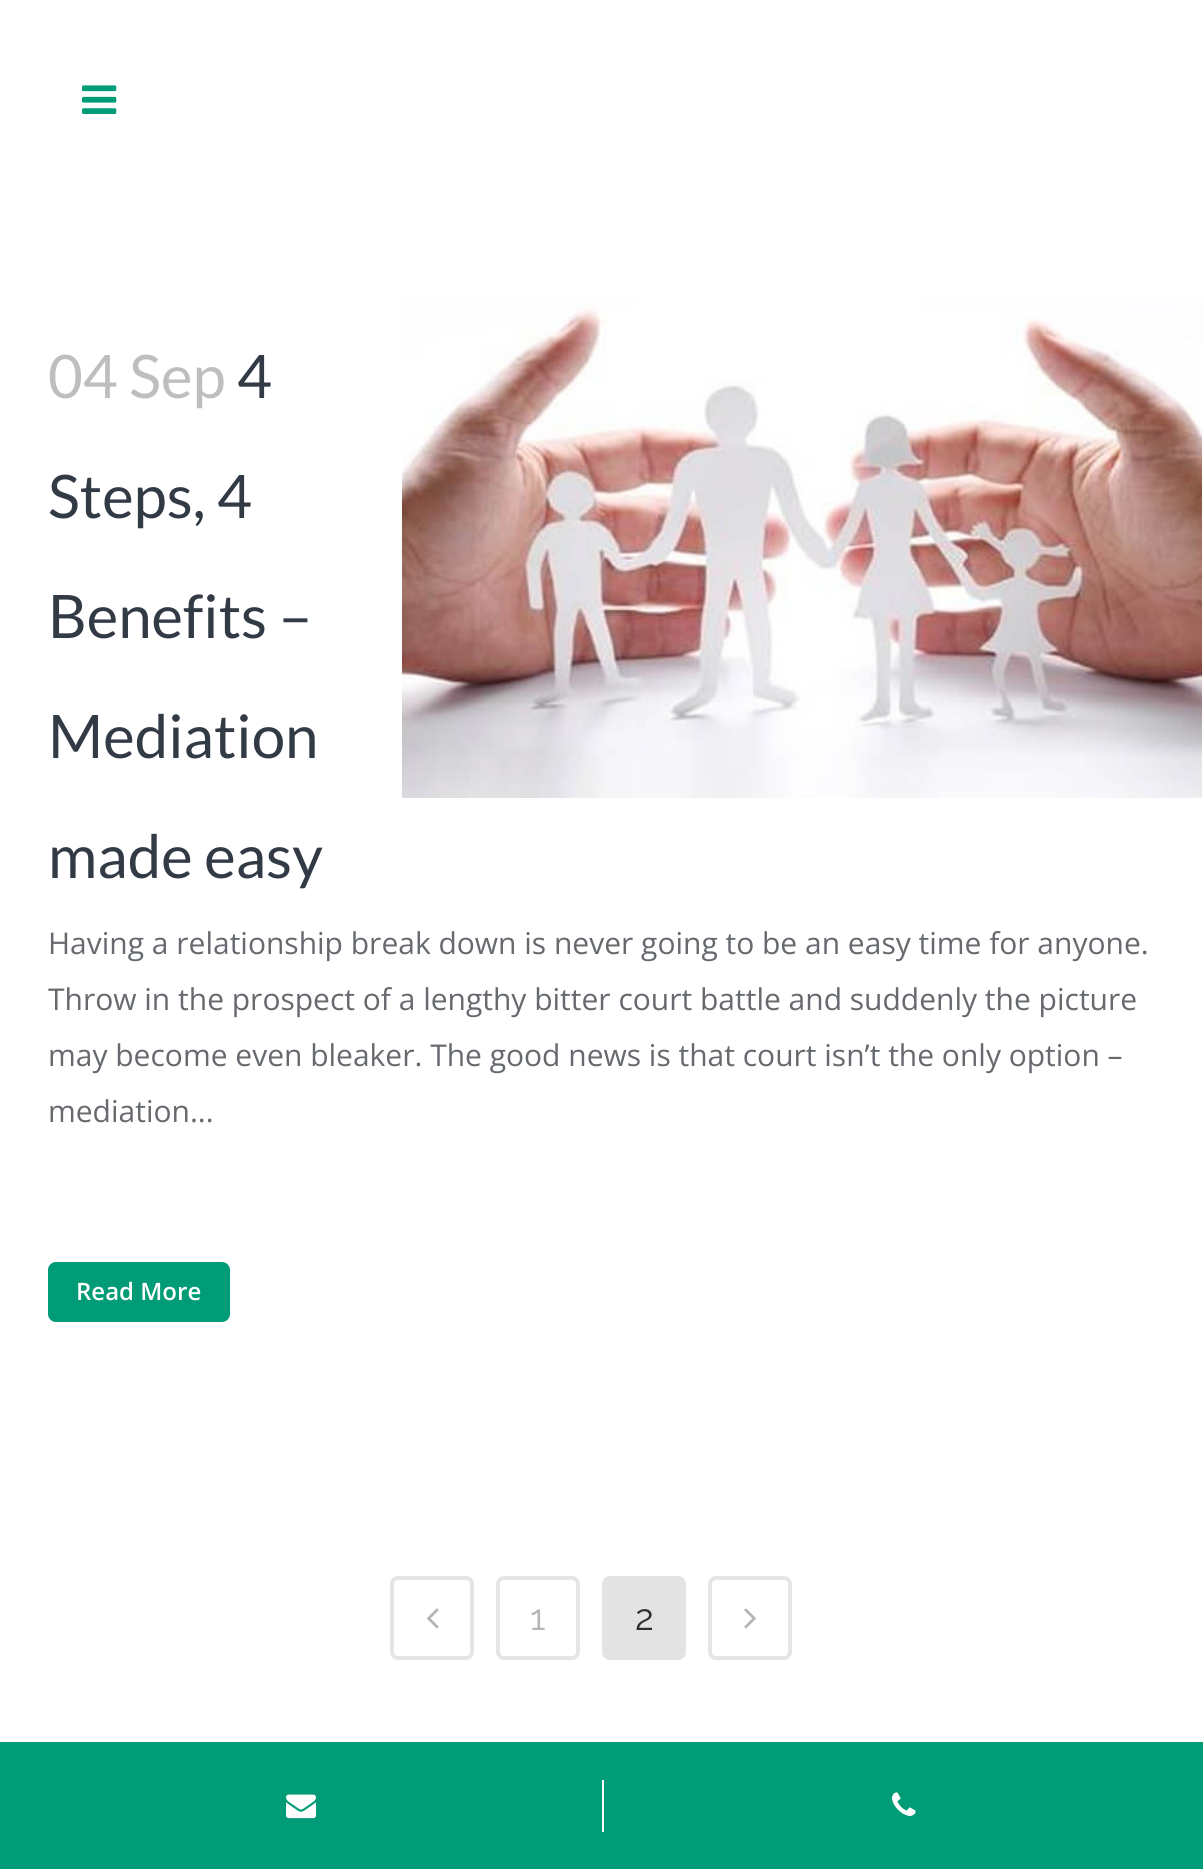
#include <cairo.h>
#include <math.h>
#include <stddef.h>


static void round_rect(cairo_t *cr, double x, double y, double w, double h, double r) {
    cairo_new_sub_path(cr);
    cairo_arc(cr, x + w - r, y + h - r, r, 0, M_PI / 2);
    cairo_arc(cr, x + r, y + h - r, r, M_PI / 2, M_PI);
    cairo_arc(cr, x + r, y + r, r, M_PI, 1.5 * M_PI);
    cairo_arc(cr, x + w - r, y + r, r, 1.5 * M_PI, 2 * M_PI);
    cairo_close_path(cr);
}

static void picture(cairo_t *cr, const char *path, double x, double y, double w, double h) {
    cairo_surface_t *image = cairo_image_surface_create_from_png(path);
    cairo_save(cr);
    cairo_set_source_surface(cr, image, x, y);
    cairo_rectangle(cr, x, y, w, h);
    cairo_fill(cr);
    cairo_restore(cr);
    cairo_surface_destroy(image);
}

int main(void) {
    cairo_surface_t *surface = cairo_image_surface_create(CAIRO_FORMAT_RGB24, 1203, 1869);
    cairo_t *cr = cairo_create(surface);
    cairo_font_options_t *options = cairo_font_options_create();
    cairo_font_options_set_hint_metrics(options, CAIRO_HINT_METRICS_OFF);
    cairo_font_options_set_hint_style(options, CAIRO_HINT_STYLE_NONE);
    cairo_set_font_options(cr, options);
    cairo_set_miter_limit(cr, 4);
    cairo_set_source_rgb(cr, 1, 1, 1);
    cairo_paint(cr);
    picture(cr, "img1.png", 82, 85, 35, 29);
    picture(cr, "img2.png", 402, 297, 800, 501);
    cairo_select_font_face(cr, "Lato", CAIRO_FONT_SLANT_NORMAL, CAIRO_FONT_WEIGHT_NORMAL);
    cairo_set_font_size(cr, 60);
    cairo_set_source_rgb(cr, 0.745, 0.745, 0.745);
    cairo_move_to(cr, 48, 398);
    cairo_show_text(cr, "04 Sep");
    cairo_set_source_rgb(cr, 0.196, 0.227, 0.271);
    cairo_move_to(cr, 237, 398);
    cairo_show_text(cr, "4");
    cairo_move_to(cr, 48, 518);
    cairo_show_text(cr, "Steps, 4");
    cairo_move_to(cr, 48, 638);
    cairo_show_text(cr, "Benefits –");
    cairo_move_to(cr, 48, 758);
    cairo_show_text(cr, "Mediation");
    cairo_move_to(cr, 48, 878);
    cairo_show_text(cr, "made easy");
    cairo_select_font_face(cr, "Open Sans", CAIRO_FONT_SLANT_NORMAL, CAIRO_FONT_WEIGHT_NORMAL);
    cairo_set_font_size(cr, 30);
    cairo_set_source_rgb(cr, 0.4, 0.416, 0.435);
    cairo_move_to(cr, 48, 954);
    cairo_show_text(cr, "Having a relationship break down is never going to be an easy time for anyone.");
    cairo_move_to(cr, 48, 1010);
    cairo_show_text(cr, "Throw in the prospect of a lengthy bitter court battle and suddenly the picture");
    cairo_move_to(cr, 48, 1066);
    cairo_show_text(cr, "may become even bleaker. The good news is that court isn’t the only option –");
    cairo_move_to(cr, 48, 1122);
    cairo_show_text(cr, "mediation...");
    cairo_set_source_rgb(cr, 0, 0.608, 0.467);
    round_rect(cr, 48, 1262, 182, 60, 8);
    cairo_fill(cr);
    cairo_select_font_face(cr, "Open Sans SemiBold", CAIRO_FONT_SLANT_NORMAL, CAIRO_FONT_WEIGHT_NORMAL);
    cairo_set_font_size(cr, 24);
    cairo_set_source_rgb(cr, 1, 1, 1);
    cairo_move_to(cr, 76, 1300);
    cairo_show_text(cr, "Read More");
    round_rect(cr, 392, 1578, 80, 80, 6);
    cairo_set_source_rgb(cr, 0.898, 0.898, 0.898);
    cairo_set_line_width(cr, 4);
    cairo_stroke(cr);
    picture(cr, "img3.png", 427, 1608, 12, 21);
    round_rect(cr, 498, 1578, 80, 80, 6);
    cairo_stroke(cr);
    cairo_select_font_face(cr, "Raleway", CAIRO_FONT_SLANT_NORMAL, CAIRO_FONT_WEIGHT_NORMAL);
    cairo_set_font_size(cr, 36);
    cairo_set_source_rgb(cr, 0.706, 0.706, 0.706);
    cairo_move_to(cr, 530, 1630);
    cairo_show_text(cr, "1");
    cairo_set_source_rgb(cr, 0.89, 0.89, 0.89);
    round_rect(cr, 604, 1578, 80, 80, 6);
    cairo_fill_preserve(cr);
    cairo_stroke(cr);
    cairo_set_source_rgb(cr, 0.188, 0.188, 0.188);
    cairo_move_to(cr, 635, 1630);
    cairo_show_text(cr, "2");
    round_rect(cr, 710, 1578, 80, 80, 6);
    cairo_set_source_rgb(cr, 0.898, 0.898, 0.898);
    cairo_stroke(cr);
    picture(cr, "img4.png", 744, 1608, 12, 21);
    cairo_set_source_rgb(cr, 0, 0.608, 0.467);
    cairo_rectangle(cr, 0, 1742, 1203, 127);
    cairo_fill(cr);
    cairo_set_source_rgb(cr, 1, 1, 1);
    cairo_rectangle(cr, 602, 1780, 2, 52);
    cairo_fill(cr);
    picture(cr, "img5.png", 286, 1794, 30, 25);
    picture(cr, "img6.png", 892, 1792, 24, 24);
    cairo_surface_write_to_png(surface, "page.png");
    cairo_font_options_destroy(options);
    cairo_destroy(cr);
    cairo_surface_destroy(surface);
    return 0;
}
